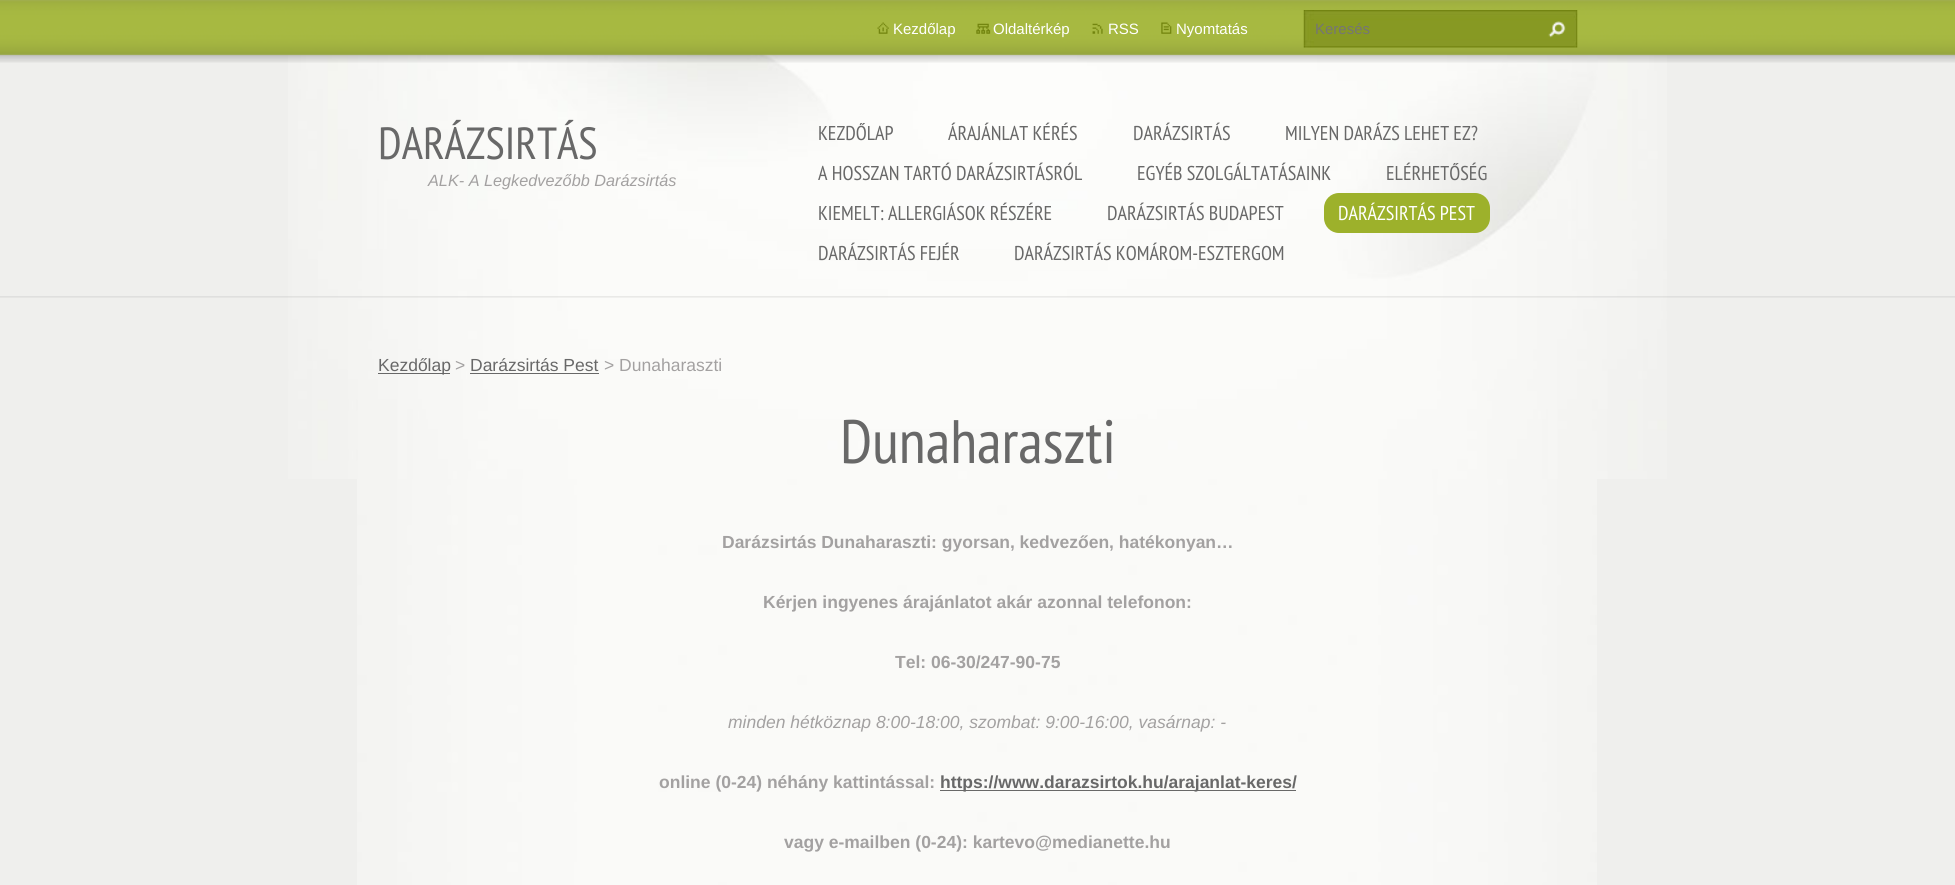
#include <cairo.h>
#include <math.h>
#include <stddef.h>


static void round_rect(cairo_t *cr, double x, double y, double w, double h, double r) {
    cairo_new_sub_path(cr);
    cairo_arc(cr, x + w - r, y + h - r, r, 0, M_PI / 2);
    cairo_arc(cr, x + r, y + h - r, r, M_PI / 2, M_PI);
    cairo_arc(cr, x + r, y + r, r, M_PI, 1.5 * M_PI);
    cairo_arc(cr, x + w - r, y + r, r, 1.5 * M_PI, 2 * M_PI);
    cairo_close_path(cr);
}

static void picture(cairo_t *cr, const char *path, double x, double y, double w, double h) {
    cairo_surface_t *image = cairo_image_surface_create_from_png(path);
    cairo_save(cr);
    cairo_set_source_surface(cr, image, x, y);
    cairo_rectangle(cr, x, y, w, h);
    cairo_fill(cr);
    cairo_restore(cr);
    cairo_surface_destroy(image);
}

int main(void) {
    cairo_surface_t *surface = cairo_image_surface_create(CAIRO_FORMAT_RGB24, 1955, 885);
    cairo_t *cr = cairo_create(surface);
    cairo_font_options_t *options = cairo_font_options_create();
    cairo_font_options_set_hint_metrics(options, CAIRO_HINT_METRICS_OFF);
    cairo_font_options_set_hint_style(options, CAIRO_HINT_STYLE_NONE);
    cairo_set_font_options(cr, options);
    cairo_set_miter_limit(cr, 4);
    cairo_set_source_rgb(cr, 0.937, 0.937, 0.929);
    cairo_paint(cr);
    picture(cr, "img1.png", 357, 479, 1240, 406);
    picture(cr, "img2.png", 288, 54, 1379, 425);
    picture(cr, "img3.png", 0, 296, 1955, 2);
    picture(cr, "img4.png", 0, 0, 1955, 63);
    picture(cr, "img5.png", 877, 22, 12, 12);
    cairo_select_font_face(cr, "Liberation Sans", CAIRO_FONT_SLANT_NORMAL, CAIRO_FONT_WEIGHT_NORMAL);
    cairo_set_font_size(cr, 15);
    cairo_set_source_rgb(cr, 1, 1, 1);
    cairo_move_to(cr, 893, 34);
    cairo_show_text(cr, "Kezdőlap");
    picture(cr, "img6.png", 976, 23, 15, 11);
    cairo_move_to(cr, 993, 34);
    cairo_show_text(cr, "Oldaltérkép");
    picture(cr, "img7.png", 1092, 23, 11, 11);
    cairo_move_to(cr, 1108, 34);
    cairo_show_text(cr, "RSS");
    picture(cr, "img8.png", 1161, 22, 11, 12);
    cairo_move_to(cr, 1176, 34);
    cairo_show_text(cr, "Nyomtatás");
    picture(cr, "img9.png", 1303, 10, 275, 38);
    cairo_set_source_rgb(cr, 0.459, 0.459, 0.459);
    cairo_move_to(cr, 1315, 34);
    cairo_show_text(cr, "Keresés");
    picture(cr, "img10.png", 1548, 21, 18, 17);
    cairo_select_font_face(cr, "PT Sans Narrow", CAIRO_FONT_SLANT_NORMAL, CAIRO_FONT_WEIGHT_NORMAL);
    cairo_set_font_size(cr, 45);
    cairo_set_source_rgb(cr, 0.408, 0.408, 0.408);
    cairo_move_to(cr, 378, 159);
    cairo_show_text(cr, "DARÁZSIRTÁS");
    cairo_select_font_face(cr, "Liberation Sans", CAIRO_FONT_SLANT_ITALIC, CAIRO_FONT_WEIGHT_NORMAL);
    cairo_set_font_size(cr, 16.25);
    cairo_set_source_rgb(cr, 0.639, 0.631, 0.631);
    cairo_move_to(cr, 428, 186);
    cairo_show_text(cr, "ALK- A Legkedvezőbb Darázsirtás");
    cairo_select_font_face(cr, "PT Sans Narrow", CAIRO_FONT_SLANT_NORMAL, CAIRO_FONT_WEIGHT_NORMAL);
    cairo_set_font_size(cr, 20);
    cairo_set_source_rgb(cr, 0.408, 0.408, 0.408);
    cairo_move_to(cr, 818, 140);
    cairo_show_text(cr, "KEZDŐLAP");
    cairo_move_to(cr, 948, 140);
    cairo_show_text(cr, "ÁRAJÁNLAT KÉRÉS");
    cairo_move_to(cr, 1133, 140);
    cairo_show_text(cr, "DARÁZSIRTÁS");
    cairo_move_to(cr, 1285, 140);
    cairo_show_text(cr, "MILYEN DARÁZS LEHET EZ?");
    cairo_move_to(cr, 818, 180);
    cairo_show_text(cr, "A HOSSZAN TARTÓ DARÁZSIRTÁSRÓL");
    cairo_move_to(cr, 1137, 180);
    cairo_show_text(cr, "EGYÉB SZOLGÁLTATÁSAINK");
    cairo_move_to(cr, 1386, 180);
    cairo_show_text(cr, "ELÉRHETŐSÉG");
    cairo_move_to(cr, 818, 220);
    cairo_show_text(cr, "KIEMELT: ALLERGIÁSOK RÉSZÉRE");
    cairo_move_to(cr, 1107, 220);
    cairo_show_text(cr, "DARÁZSIRTÁS BUDAPEST");
    cairo_set_source_rgb(cr, 0.616, 0.694, 0.169);
    round_rect(cr, 1324, 193, 166, 40, 15);
    cairo_fill(cr);
    cairo_set_source_rgb(cr, 1, 1, 1);
    cairo_move_to(cr, 1338, 220);
    cairo_show_text(cr, "DARÁZSIRTÁS PEST");
    cairo_set_source_rgb(cr, 0.408, 0.408, 0.408);
    cairo_move_to(cr, 818, 260);
    cairo_show_text(cr, "DARÁZSIRTÁS FEJÉR");
    cairo_move_to(cr, 1014, 260);
    cairo_show_text(cr, "DARÁZSIRTÁS KOMÁROM-ESZTERGOM");
    cairo_rectangle(cr, 378, 373, 72, 1);
    cairo_fill(cr);
    cairo_select_font_face(cr, "Liberation Sans", CAIRO_FONT_SLANT_NORMAL, CAIRO_FONT_WEIGHT_NORMAL);
    cairo_set_font_size(cr, 17.5);
    cairo_move_to(cr, 378, 371);
    cairo_show_text(cr, "Kezdőlap");
    cairo_set_source_rgb(cr, 0.639, 0.631, 0.631);
    cairo_move_to(cr, 455, 371);
    cairo_show_text(cr, ">");
    cairo_set_source_rgb(cr, 0.408, 0.408, 0.408);
    cairo_move_to(cr, 470, 371);
    cairo_show_text(cr, "Darázsirtás Pest");
    cairo_rectangle(cr, 470, 373, 129, 1);
    cairo_fill(cr);
    cairo_set_source_rgb(cr, 0.639, 0.631, 0.631);
    cairo_move_to(cr, 604, 371);
    cairo_show_text(cr, "> Dunaharaszti");
    cairo_select_font_face(cr, "PT Sans Narrow", CAIRO_FONT_SLANT_NORMAL, CAIRO_FONT_WEIGHT_NORMAL);
    cairo_set_font_size(cr, 61.25);
    cairo_set_source_rgb(cr, 0.408, 0.408, 0.408);
    cairo_move_to(cr, 840, 463);
    cairo_show_text(cr, "Dunaharaszti");
    cairo_select_font_face(cr, "Liberation Sans", CAIRO_FONT_SLANT_NORMAL, CAIRO_FONT_WEIGHT_BOLD);
    cairo_set_font_size(cr, 17.5);
    cairo_set_source_rgb(cr, 0.639, 0.631, 0.631);
    cairo_move_to(cr, 722, 548);
    cairo_show_text(cr, "Darázsirtás Dunaharaszti: gyorsan, kedvezően, hatékonyan…");
    cairo_move_to(cr, 763, 608);
    cairo_show_text(cr, "Kérjen ingyenes árajánlatot akár azonnal telefonon:");
    cairo_move_to(cr, 895, 668);
    cairo_show_text(cr, "Tel: 06-30/247-90-75");
    cairo_select_font_face(cr, "Liberation Sans", CAIRO_FONT_SLANT_ITALIC, CAIRO_FONT_WEIGHT_NORMAL);
    cairo_move_to(cr, 728, 728);
    cairo_show_text(cr, "minden hétköznap 8:00-18:00, szombat: 9:00-16:00, vasárnap: -");
    cairo_select_font_face(cr, "Liberation Sans", CAIRO_FONT_SLANT_NORMAL, CAIRO_FONT_WEIGHT_BOLD);
    cairo_move_to(cr, 659, 788);
    cairo_show_text(cr, "online (0-24) néhány kattintással:");
    cairo_set_source_rgb(cr, 0.408, 0.408, 0.408);
    cairo_rectangle(cr, 940, 790, 356, 1);
    cairo_fill(cr);
    cairo_move_to(cr, 940, 788);
    cairo_show_text(cr, "https://www.darazsirtok.hu/arajanlat-keres/");
    cairo_set_source_rgb(cr, 0.639, 0.631, 0.631);
    cairo_move_to(cr, 784, 848);
    cairo_show_text(cr, "vagy e-mailben (0-24): kartevo@medianette.hu");
    cairo_surface_write_to_png(surface, "page.png");
    cairo_font_options_destroy(options);
    cairo_destroy(cr);
    cairo_surface_destroy(surface);
    return 0;
}
